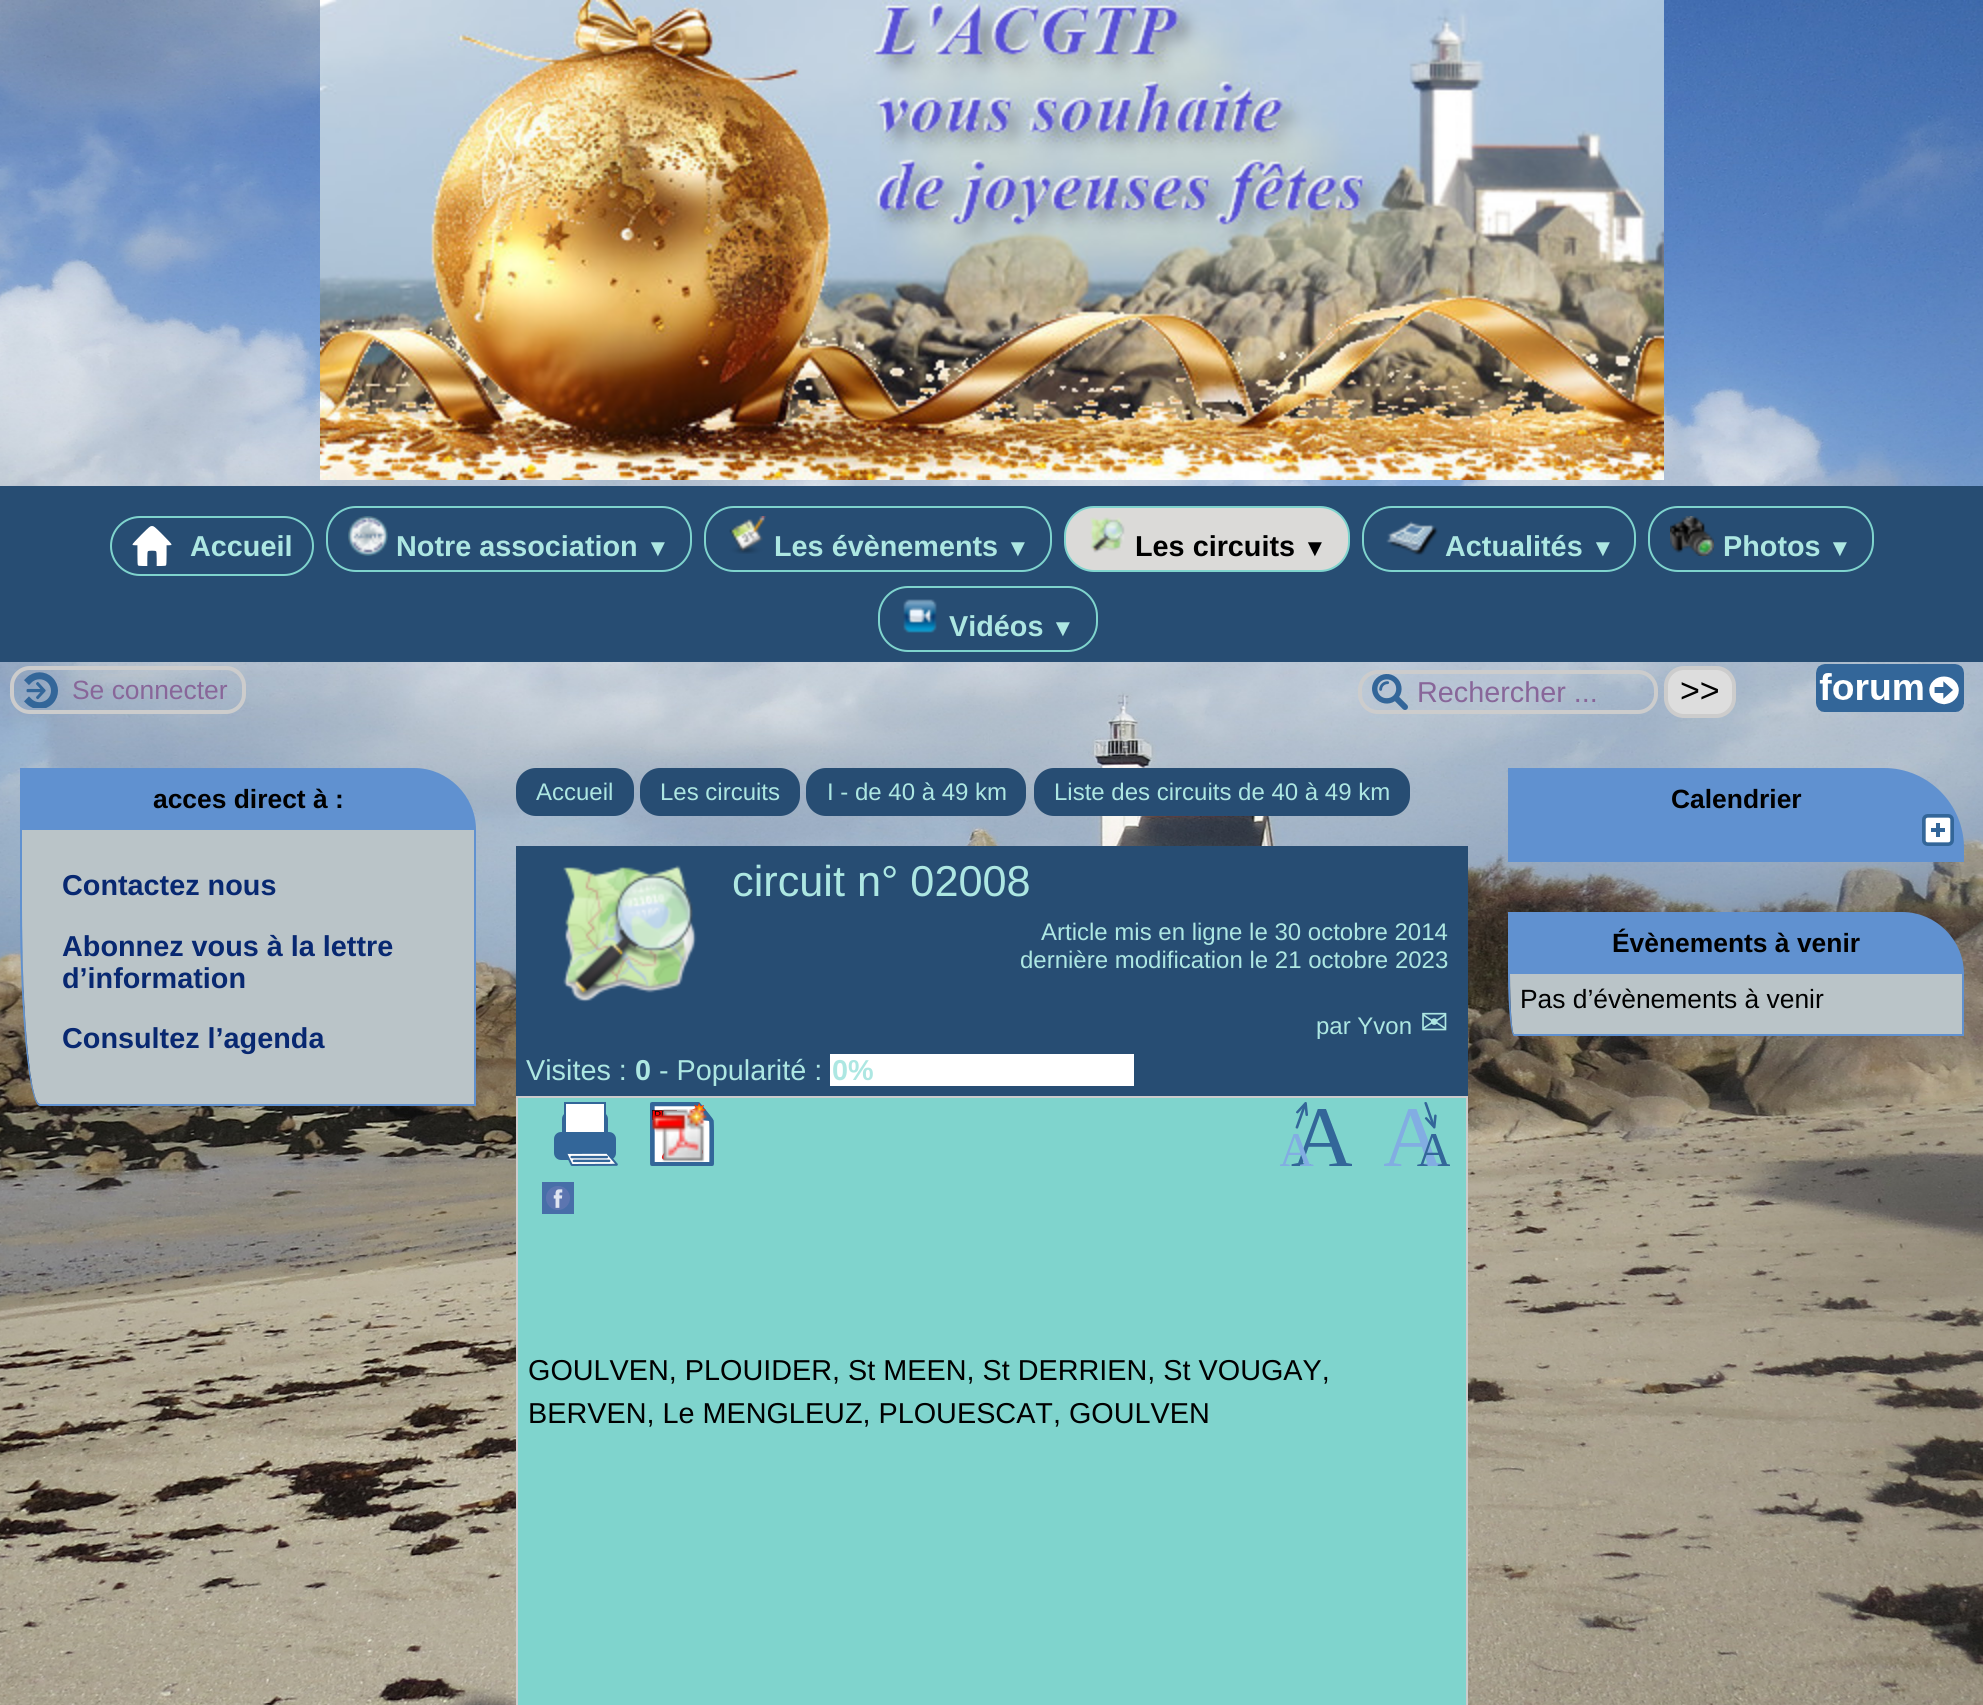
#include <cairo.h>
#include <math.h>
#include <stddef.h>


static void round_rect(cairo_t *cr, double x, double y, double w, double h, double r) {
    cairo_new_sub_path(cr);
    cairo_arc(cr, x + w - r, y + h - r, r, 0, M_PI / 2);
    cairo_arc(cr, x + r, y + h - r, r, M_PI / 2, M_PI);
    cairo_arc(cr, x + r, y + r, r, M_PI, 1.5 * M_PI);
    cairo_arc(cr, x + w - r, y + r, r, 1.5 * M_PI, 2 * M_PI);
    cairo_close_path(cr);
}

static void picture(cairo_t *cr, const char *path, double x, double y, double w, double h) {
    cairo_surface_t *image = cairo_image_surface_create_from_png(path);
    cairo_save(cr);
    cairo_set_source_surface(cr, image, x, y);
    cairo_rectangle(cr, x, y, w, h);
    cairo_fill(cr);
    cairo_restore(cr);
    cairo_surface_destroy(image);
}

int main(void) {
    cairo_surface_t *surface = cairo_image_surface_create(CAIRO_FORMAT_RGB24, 1983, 1705);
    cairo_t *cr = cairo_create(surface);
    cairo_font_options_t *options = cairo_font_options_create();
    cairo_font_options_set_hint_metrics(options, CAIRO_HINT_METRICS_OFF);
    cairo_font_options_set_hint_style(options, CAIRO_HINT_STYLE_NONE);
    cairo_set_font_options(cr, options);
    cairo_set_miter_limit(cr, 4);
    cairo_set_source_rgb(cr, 1, 1, 1);
    cairo_paint(cr);
    picture(cr, "img1.png", 0, 0, 1983, 1705);
    picture(cr, "img2.png", 320, 0, 1344, 480);
    cairo_set_source_rgb(cr, 0.153, 0.302, 0.451);
    cairo_rectangle(cr, 0, 486, 1983, 176);
    cairo_fill(cr);
    round_rect(cr, 111, 517, 202, 58, 29);
    cairo_set_source_rgb(cr, 0.498, 0.831, 0.804);
    cairo_stroke(cr);
    picture(cr, "img3.png", 132, 526, 40, 40);
    cairo_select_font_face(cr, "Liberation Sans", CAIRO_FONT_SLANT_NORMAL, CAIRO_FONT_WEIGHT_BOLD);
    cairo_set_font_size(cr, 28.8);
    cairo_set_source_rgb(cr, 0.678, 0.906, 0.886);
    cairo_move_to(cr, 190, 556);
    cairo_show_text(cr, "Accueil");
    round_rect(cr, 327, 507, 364, 64, 29);
    cairo_set_source_rgb(cr, 0.498, 0.831, 0.804);
    cairo_stroke(cr);
    picture(cr, "img4.png", 348, 516, 40, 40);
    cairo_set_source_rgb(cr, 0.678, 0.906, 0.886);
    cairo_move_to(cr, 396, 556);
    cairo_show_text(cr, "Notre association");
    cairo_set_font_size(cr, 24);
    cairo_move_to(cr, 646, 556);
    cairo_show_text(cr, "▼");
    round_rect(cr, 705, 507, 346, 64, 29);
    cairo_set_source_rgb(cr, 0.498, 0.831, 0.804);
    cairo_stroke(cr);
    picture(cr, "img5.png", 729, 516, 37, 38);
    cairo_set_font_size(cr, 28.8);
    cairo_set_source_rgb(cr, 0.678, 0.906, 0.886);
    cairo_move_to(cr, 774, 556);
    cairo_show_text(cr, "Les évènements");
    cairo_set_font_size(cr, 24);
    cairo_move_to(cr, 1006, 556);
    cairo_show_text(cr, "▼");
    cairo_set_source_rgb(cr, 0.859, 0.855, 0.847);
    round_rect(cr, 1065, 507, 284, 64, 29);
    cairo_fill_preserve(cr);
    cairo_set_source_rgb(cr, 0.498, 0.831, 0.804);
    cairo_stroke(cr);
    picture(cr, "img6.png", 1090, 517, 35, 36);
    cairo_set_font_size(cr, 28.8);
    cairo_set_source_rgb(cr, 0, 0, 0);
    cairo_move_to(cr, 1135, 556);
    cairo_show_text(cr, "Les circuits");
    cairo_set_font_size(cr, 24);
    cairo_move_to(cr, 1303, 556);
    cairo_show_text(cr, "▼");
    round_rect(cr, 1363, 507, 272, 64, 29);
    cairo_set_source_rgb(cr, 0.498, 0.831, 0.804);
    cairo_stroke(cr);
    picture(cr, "img7.png", 1386, 521, 52, 35);
    cairo_set_font_size(cr, 28.8);
    cairo_set_source_rgb(cr, 0.678, 0.906, 0.886);
    cairo_move_to(cr, 1445, 556);
    cairo_show_text(cr, "Actualités");
    cairo_set_font_size(cr, 24);
    cairo_move_to(cr, 1591, 556);
    cairo_show_text(cr, "▼");
    round_rect(cr, 1649, 507, 224, 64, 29);
    cairo_set_source_rgb(cr, 0.498, 0.831, 0.804);
    cairo_stroke(cr);
    picture(cr, "img8.png", 1670, 516, 44, 40);
    cairo_set_font_size(cr, 28.8);
    cairo_set_source_rgb(cr, 0.678, 0.906, 0.886);
    cairo_move_to(cr, 1723, 556);
    cairo_show_text(cr, "Photos");
    cairo_set_font_size(cr, 24);
    cairo_move_to(cr, 1828, 556);
    cairo_show_text(cr, "▼");
    round_rect(cr, 879, 587, 218, 64, 29);
    cairo_set_source_rgb(cr, 0.498, 0.831, 0.804);
    cairo_stroke(cr);
    picture(cr, "img9.png", 903, 599, 34, 34);
    cairo_set_font_size(cr, 28.8);
    cairo_set_source_rgb(cr, 0.678, 0.906, 0.886);
    cairo_move_to(cr, 949, 636);
    cairo_show_text(cr, "Vidéos");
    cairo_set_font_size(cr, 24);
    cairo_move_to(cr, 1051, 636);
    cairo_show_text(cr, "▼");
    picture(cr, "img10.png", 24, 672, 34, 36);
    round_rect(cr, 12, 668, 232, 44, 18);
    cairo_set_source_rgb(cr, 0.8, 0.8, 0.8);
    cairo_set_line_width(cr, 4);
    cairo_stroke(cr);
    cairo_select_font_face(cr, "Liberation Sans", CAIRO_FONT_SLANT_NORMAL, CAIRO_FONT_WEIGHT_NORMAL);
    cairo_set_font_size(cr, 26.4);
    cairo_set_source_rgb(cr, 0.533, 0.4, 0.6);
    cairo_move_to(cr, 72, 699);
    cairo_show_text(cr, "Se connecter");
    picture(cr, "img11.png", 1372, 674, 36, 36);
    round_rect(cr, 1360, 672, 296, 40, 18);
    cairo_set_source_rgb(cr, 0.8, 0.8, 0.8);
    cairo_stroke(cr);
    cairo_set_font_size(cr, 28.8);
    cairo_set_source_rgb(cr, 0.533, 0.4, 0.6);
    cairo_move_to(cr, 1417, 702);
    cairo_show_text(cr, "Rechercher ...");
    cairo_set_source_rgb(cr, 0.867, 0.867, 0.867);
    round_rect(cr, 1666, 668, 68, 48, 18);
    cairo_fill_preserve(cr);
    cairo_set_source_rgb(cr, 0.8, 0.8, 0.8);
    cairo_stroke(cr);
    cairo_set_font_size(cr, 34);
    cairo_set_source_rgb(cr, 0, 0, 0);
    cairo_move_to(cr, 1680, 702);
    cairo_show_text(cr, ">>");
    picture(cr, "img12.png", 1816, 664, 148, 48);
    cairo_set_source_rgb(cr, 0.376, 0.569, 0.816);
    cairo_new_path(cr);
    cairo_move_to(cr, 20, 768);
    cairo_line_to(cr, 414, 768);
    cairo_curve_to(cr, 448, 768, 476, 796, 476, 830);
    cairo_line_to(cr, 20, 830);
    cairo_close_path(cr);
    cairo_fill(cr);
    cairo_select_font_face(cr, "Liberation Sans", CAIRO_FONT_SLANT_NORMAL, CAIRO_FONT_WEIGHT_BOLD);
    cairo_set_font_size(cr, 26.4);
    cairo_set_source_rgb(cr, 0, 0, 0);
    cairo_move_to(cr, 153, 808);
    cairo_show_text(cr, "acces direct à :");
    cairo_set_source_rgb(cr, 0.729, 0.769, 0.784);
    cairo_new_path(cr);
    cairo_move_to(cr, 22, 830);
    cairo_line_to(cr, 474, 830);
    cairo_line_to(cr, 474, 1104);
    cairo_line_to(cr, 40, 1104);
    cairo_curve_to(cr, 30, 1104, 22, 1015, 22, 906);
    cairo_close_path(cr);
    cairo_fill(cr);
    cairo_set_source_rgb(cr, 0.376, 0.569, 0.816);
    cairo_set_fill_rule(cr, CAIRO_FILL_RULE_EVEN_ODD);
    cairo_new_path(cr);
    cairo_move_to(cr, 20, 830);
    cairo_line_to(cr, 476, 830);
    cairo_line_to(cr, 476, 1106);
    cairo_line_to(cr, 40, 1106);
    cairo_curve_to(cr, 29, 1106, 20, 1016, 20, 906);
    cairo_close_path(cr);
    cairo_move_to(cr, 22, 830);
    cairo_line_to(cr, 474, 830);
    cairo_line_to(cr, 474, 1104);
    cairo_line_to(cr, 40, 1104);
    cairo_curve_to(cr, 30, 1104, 22, 1015, 22, 906);
    cairo_close_path(cr);
    cairo_fill(cr);
    cairo_set_font_size(cr, 28.8);
    cairo_set_source_rgb(cr, 0.035, 0.157, 0.443);
    cairo_move_to(cr, 62, 895);
    cairo_show_text(cr, "Contactez nous");
    cairo_move_to(cr, 62, 956);
    cairo_show_text(cr, "Abonnez vous à la lettre");
    cairo_move_to(cr, 62, 988);
    cairo_show_text(cr, "d’information");
    cairo_move_to(cr, 62, 1048);
    cairo_show_text(cr, "Consultez l’agenda");
    cairo_set_source_rgb(cr, 0.153, 0.302, 0.451);
    round_rect(cr, 516, 768, 118, 48, 20);
    cairo_fill(cr);
    cairo_select_font_face(cr, "Liberation Sans", CAIRO_FONT_SLANT_NORMAL, CAIRO_FONT_WEIGHT_NORMAL);
    cairo_set_font_size(cr, 24);
    cairo_set_source_rgb(cr, 0.678, 0.906, 0.886);
    cairo_move_to(cr, 536, 800);
    cairo_show_text(cr, "Accueil");
    cairo_set_source_rgb(cr, 0.153, 0.302, 0.451);
    round_rect(cr, 640, 768, 160, 48, 20);
    cairo_fill(cr);
    cairo_set_source_rgb(cr, 0.678, 0.906, 0.886);
    cairo_move_to(cr, 660, 800);
    cairo_show_text(cr, "Les circuits");
    cairo_set_source_rgb(cr, 0.153, 0.302, 0.451);
    round_rect(cr, 806, 768, 220, 48, 20);
    cairo_fill(cr);
    cairo_set_source_rgb(cr, 0.678, 0.906, 0.886);
    cairo_move_to(cr, 827, 800);
    cairo_show_text(cr, "I - de 40 à 49 km");
    cairo_set_source_rgb(cr, 0.153, 0.302, 0.451);
    round_rect(cr, 1034, 768, 376, 48, 20);
    cairo_fill(cr);
    cairo_set_source_rgb(cr, 0.678, 0.906, 0.886);
    cairo_move_to(cr, 1054, 800);
    cairo_show_text(cr, "Liste des circuits de 40 à 49 km");
    cairo_set_source_rgb(cr, 0.153, 0.302, 0.451);
    cairo_rectangle(cr, 516, 846, 952, 250);
    cairo_fill(cr);
    picture(cr, "img13.png", 563, 865, 134, 137);
    cairo_set_font_size(cr, 43.25);
    cairo_set_source_rgb(cr, 0.678, 0.906, 0.886);
    cairo_move_to(cr, 732, 896);
    cairo_show_text(cr, "circuit n° 02008");
    cairo_set_font_size(cr, 24);
    cairo_move_to(cr, 1041, 940);
    cairo_show_text(cr, "Article mis en ligne le 30 octobre 2014");
    cairo_move_to(cr, 1020, 968);
    cairo_show_text(cr, "dernière modification le 21 octobre 2023");
    cairo_move_to(cr, 1316, 1034);
    cairo_show_text(cr, "par Yvon");
    cairo_select_font_face(cr, "DejaVu Sans", CAIRO_FONT_SLANT_NORMAL, CAIRO_FONT_WEIGHT_NORMAL);
    cairo_set_font_size(cr, 34);
    cairo_move_to(cr, 1420, 1034);
    cairo_show_text(cr, "✉");
    cairo_select_font_face(cr, "Liberation Sans", CAIRO_FONT_SLANT_NORMAL, CAIRO_FONT_WEIGHT_NORMAL);
    cairo_set_font_size(cr, 28.8);
    cairo_move_to(cr, 526, 1080);
    cairo_show_text(cr, "Visites :");
    cairo_select_font_face(cr, "Liberation Sans", CAIRO_FONT_SLANT_NORMAL, CAIRO_FONT_WEIGHT_BOLD);
    cairo_move_to(cr, 635, 1080);
    cairo_show_text(cr, "0");
    cairo_select_font_face(cr, "Liberation Sans", CAIRO_FONT_SLANT_NORMAL, CAIRO_FONT_WEIGHT_NORMAL);
    cairo_move_to(cr, 659, 1080);
    cairo_show_text(cr, "- Popularité :");
    cairo_set_source_rgb(cr, 1, 1, 1);
    cairo_rectangle(cr, 830, 1054, 304, 32);
    cairo_fill(cr);
    cairo_select_font_face(cr, "Liberation Sans", CAIRO_FONT_SLANT_NORMAL, CAIRO_FONT_WEIGHT_BOLD);
    cairo_set_source_rgb(cr, 0.678, 0.906, 0.886);
    cairo_move_to(cr, 832, 1080);
    cairo_show_text(cr, "0%");
    cairo_set_source_rgb(cr, 0.498, 0.831, 0.804);
    cairo_rectangle(cr, 517, 1097, 950, 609);
    cairo_fill_preserve(cr);
    cairo_set_source_rgb(cr, 0.8, 0.8, 0.8);
    cairo_set_line_width(cr, 2);
    cairo_stroke(cr);
    picture(cr, "img14.png", 554, 1102, 64, 64);
    picture(cr, "img15.png", 650, 1102, 64, 64);
    picture(cr, "img16.png", 651, 1106, 56, 56);
    picture(cr, "img17.png", 542, 1182, 32, 32);
    picture(cr, "img18.png", 1280, 1102, 72, 64);
    picture(cr, "img19.png", 1384, 1102, 66, 64);
    cairo_select_font_face(cr, "Liberation Sans", CAIRO_FONT_SLANT_NORMAL, CAIRO_FONT_WEIGHT_NORMAL);
    cairo_set_source_rgb(cr, 0, 0, 0);
    cairo_move_to(cr, 528, 1380);
    cairo_show_text(cr, "GOULVEN, PLOUIDER, St MEEN, St DERRIEN, St VOUGAY,");
    cairo_move_to(cr, 528, 1423);
    cairo_show_text(cr, "BERVEN, Le MENGLEUZ, PLOUESCAT, GOULVEN");
    cairo_set_source_rgb(cr, 0.376, 0.569, 0.816);
    cairo_new_path(cr);
    cairo_move_to(cr, 1508, 768);
    cairo_line_to(cr, 1884, 768);
    cairo_curve_to(cr, 1928, 768, 1964, 804, 1964, 848);
    cairo_line_to(cr, 1964, 862);
    cairo_line_to(cr, 1508, 862);
    cairo_close_path(cr);
    cairo_fill(cr);
    cairo_select_font_face(cr, "Liberation Sans", CAIRO_FONT_SLANT_NORMAL, CAIRO_FONT_WEIGHT_BOLD);
    cairo_set_font_size(cr, 26.4);
    cairo_set_source_rgb(cr, 0, 0, 0);
    cairo_move_to(cr, 1671, 808);
    cairo_show_text(cr, "Calendrier");
    picture(cr, "img20.png", 1922, 814, 32, 32);
    cairo_set_source_rgb(cr, 0.376, 0.569, 0.816);
    cairo_new_path(cr);
    cairo_move_to(cr, 1508, 912);
    cairo_line_to(cr, 1902, 912);
    cairo_curve_to(cr, 1936, 912, 1964, 940, 1964, 974);
    cairo_line_to(cr, 1508, 974);
    cairo_close_path(cr);
    cairo_fill(cr);
    cairo_set_source_rgb(cr, 0, 0, 0);
    cairo_move_to(cr, 1612, 952);
    cairo_show_text(cr, "Évènements à venir");
    cairo_set_source_rgb(cr, 0.729, 0.769, 0.784);
    cairo_set_fill_rule(cr, CAIRO_FILL_RULE_WINDING);
    cairo_new_path(cr);
    cairo_move_to(cr, 1510, 974);
    cairo_line_to(cr, 1962, 974);
    cairo_line_to(cr, 1962, 1034);
    cairo_line_to(cr, 1514, 1034);
    cairo_curve_to(cr, 1512, 1034, 1510, 1007, 1510, 974);
    cairo_close_path(cr);
    cairo_fill(cr);
    cairo_set_source_rgb(cr, 0.376, 0.569, 0.816);
    cairo_set_fill_rule(cr, CAIRO_FILL_RULE_EVEN_ODD);
    cairo_new_path(cr);
    cairo_move_to(cr, 1508, 974);
    cairo_line_to(cr, 1964, 974);
    cairo_line_to(cr, 1964, 1036);
    cairo_line_to(cr, 1514, 1036);
    cairo_curve_to(cr, 1511, 1036, 1508, 1008, 1508, 974);
    cairo_close_path(cr);
    cairo_move_to(cr, 1510, 974);
    cairo_line_to(cr, 1962, 974);
    cairo_line_to(cr, 1962, 1034);
    cairo_line_to(cr, 1514, 1034);
    cairo_curve_to(cr, 1512, 1034, 1510, 1007, 1510, 974);
    cairo_close_path(cr);
    cairo_fill(cr);
    cairo_select_font_face(cr, "Liberation Sans", CAIRO_FONT_SLANT_NORMAL, CAIRO_FONT_WEIGHT_NORMAL);
    cairo_set_source_rgb(cr, 0, 0, 0);
    cairo_move_to(cr, 1520, 1008);
    cairo_show_text(cr, "Pas d’évènements à venir");
    cairo_surface_write_to_png(surface, "page.png");
    cairo_font_options_destroy(options);
    cairo_destroy(cr);
    cairo_surface_destroy(surface);
    return 0;
}
